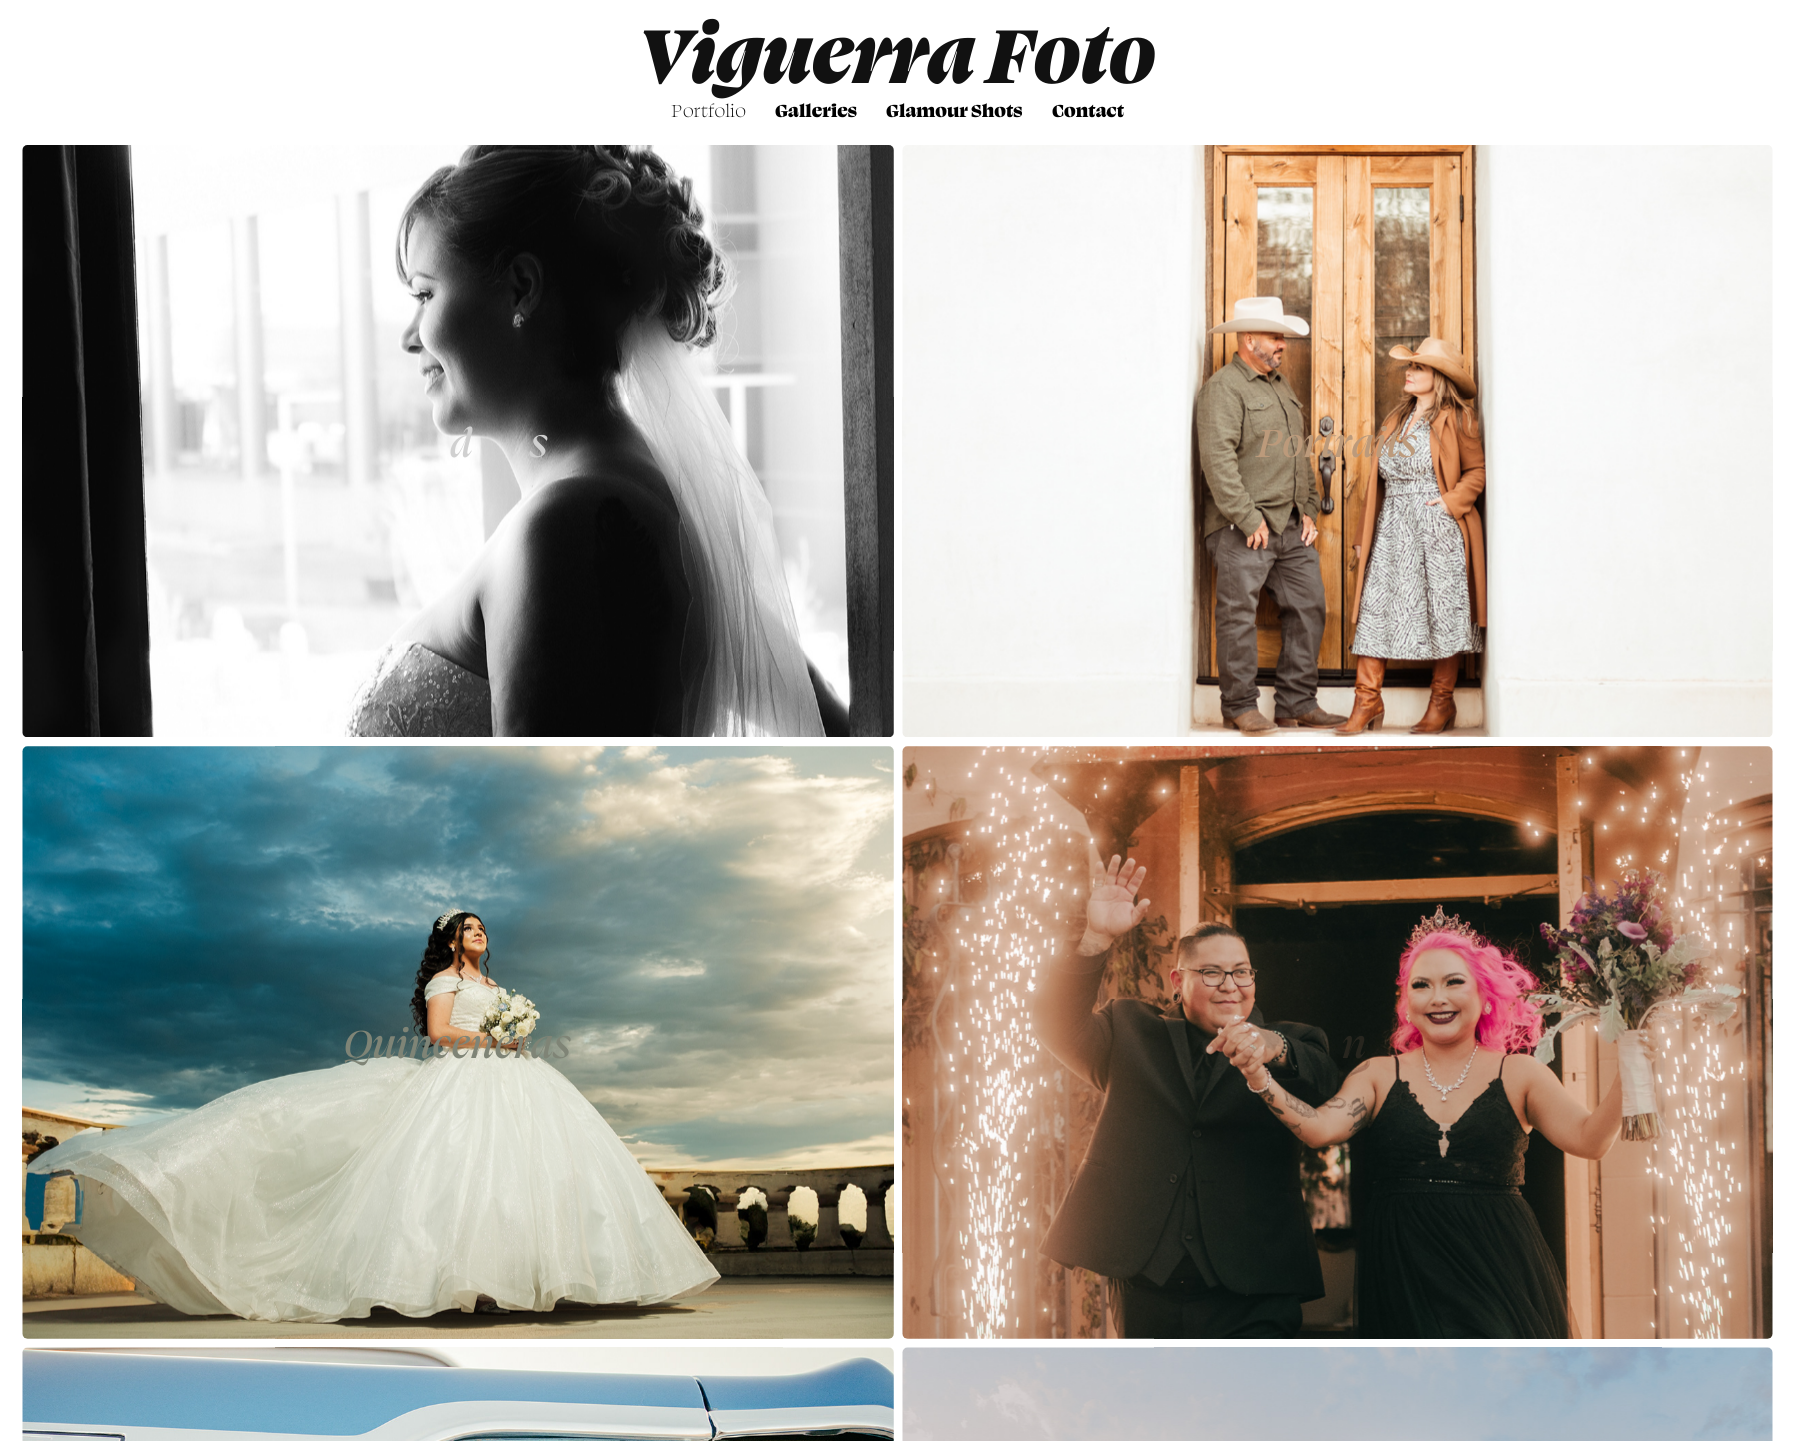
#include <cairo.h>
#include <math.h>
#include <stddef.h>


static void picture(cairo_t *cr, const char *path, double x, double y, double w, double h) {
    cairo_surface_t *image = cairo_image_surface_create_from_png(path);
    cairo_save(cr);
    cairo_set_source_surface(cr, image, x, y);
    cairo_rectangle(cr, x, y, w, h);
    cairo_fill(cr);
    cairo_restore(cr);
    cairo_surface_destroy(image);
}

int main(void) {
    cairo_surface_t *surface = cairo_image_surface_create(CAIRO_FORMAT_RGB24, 1795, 1441);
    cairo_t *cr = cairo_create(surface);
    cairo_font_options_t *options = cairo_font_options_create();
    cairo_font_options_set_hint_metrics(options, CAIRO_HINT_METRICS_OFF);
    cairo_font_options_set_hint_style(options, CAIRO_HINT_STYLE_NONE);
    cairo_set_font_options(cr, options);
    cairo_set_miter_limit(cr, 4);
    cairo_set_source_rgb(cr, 1, 1, 1);
    cairo_paint(cr);
    cairo_select_font_face(cr, "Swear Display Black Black", CAIRO_FONT_SLANT_ITALIC, CAIRO_FONT_WEIGHT_NORMAL);
    cairo_set_font_size(cr, 87.5);
    cairo_set_source_rgb(cr, 0.067, 0.067, 0.067);
    cairo_move_to(cr, 638, 83);
    cairo_show_text(cr, "Viguerra Foto");
    cairo_select_font_face(cr, "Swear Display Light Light", CAIRO_FONT_SLANT_NORMAL, CAIRO_FONT_WEIGHT_NORMAL);
    cairo_set_font_size(cr, 20);
    cairo_move_to(cr, 671, 117);
    cairo_show_text(cr, "Portfolio");
    cairo_select_font_face(cr, "Swear Display Black Black", CAIRO_FONT_SLANT_NORMAL, CAIRO_FONT_WEIGHT_NORMAL);
    cairo_set_source_rgb(cr, 0, 0, 0);
    cairo_move_to(cr, 775, 117);
    cairo_show_text(cr, "Galleries");
    cairo_move_to(cr, 886, 117);
    cairo_show_text(cr, "Glamour Shots");
    cairo_move_to(cr, 1052, 117);
    cairo_show_text(cr, "Contact");
    picture(cr, "img1.png", 22, 145, 872, 592);
    cairo_select_font_face(cr, "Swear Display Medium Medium", CAIRO_FONT_SLANT_ITALIC, CAIRO_FONT_WEIGHT_NORMAL);
    cairo_set_font_size(cr, 45);
    cairo_set_source_rgb(cr, 0.816, 0.816, 0.816);
    cairo_move_to(cr, 450, 457);
    cairo_show_text(cr, "d");
    cairo_move_to(cr, 530, 457);
    cairo_show_text(cr, "s");
    picture(cr, "img2.png", 902, 145, 871, 592);
    cairo_set_source_rgb(cr, 0.737, 0.604, 0.482);
    cairo_move_to(cr, 1257, 457);
    cairo_show_text(cr, "Portraits");
    picture(cr, "img3.png", 22, 746, 872, 593);
    cairo_set_source_rgb(cr, 0.498, 0.518, 0.463);
    cairo_move_to(cr, 344, 1058);
    cairo_show_text(cr, "Quinceneras");
    picture(cr, "img4.png", 902, 746, 871, 593);
    cairo_set_source_rgb(cr, 0.153, 0.145, 0.118);
    cairo_move_to(cr, 1342, 1058);
    cairo_show_text(cr, "n");
    picture(cr, "img5.png", 22, 1347, 872, 94);
    picture(cr, "img6.png", 902, 1347, 871, 94);
    cairo_surface_write_to_png(surface, "page.png");
    cairo_font_options_destroy(options);
    cairo_destroy(cr);
    cairo_surface_destroy(surface);
    return 0;
}
